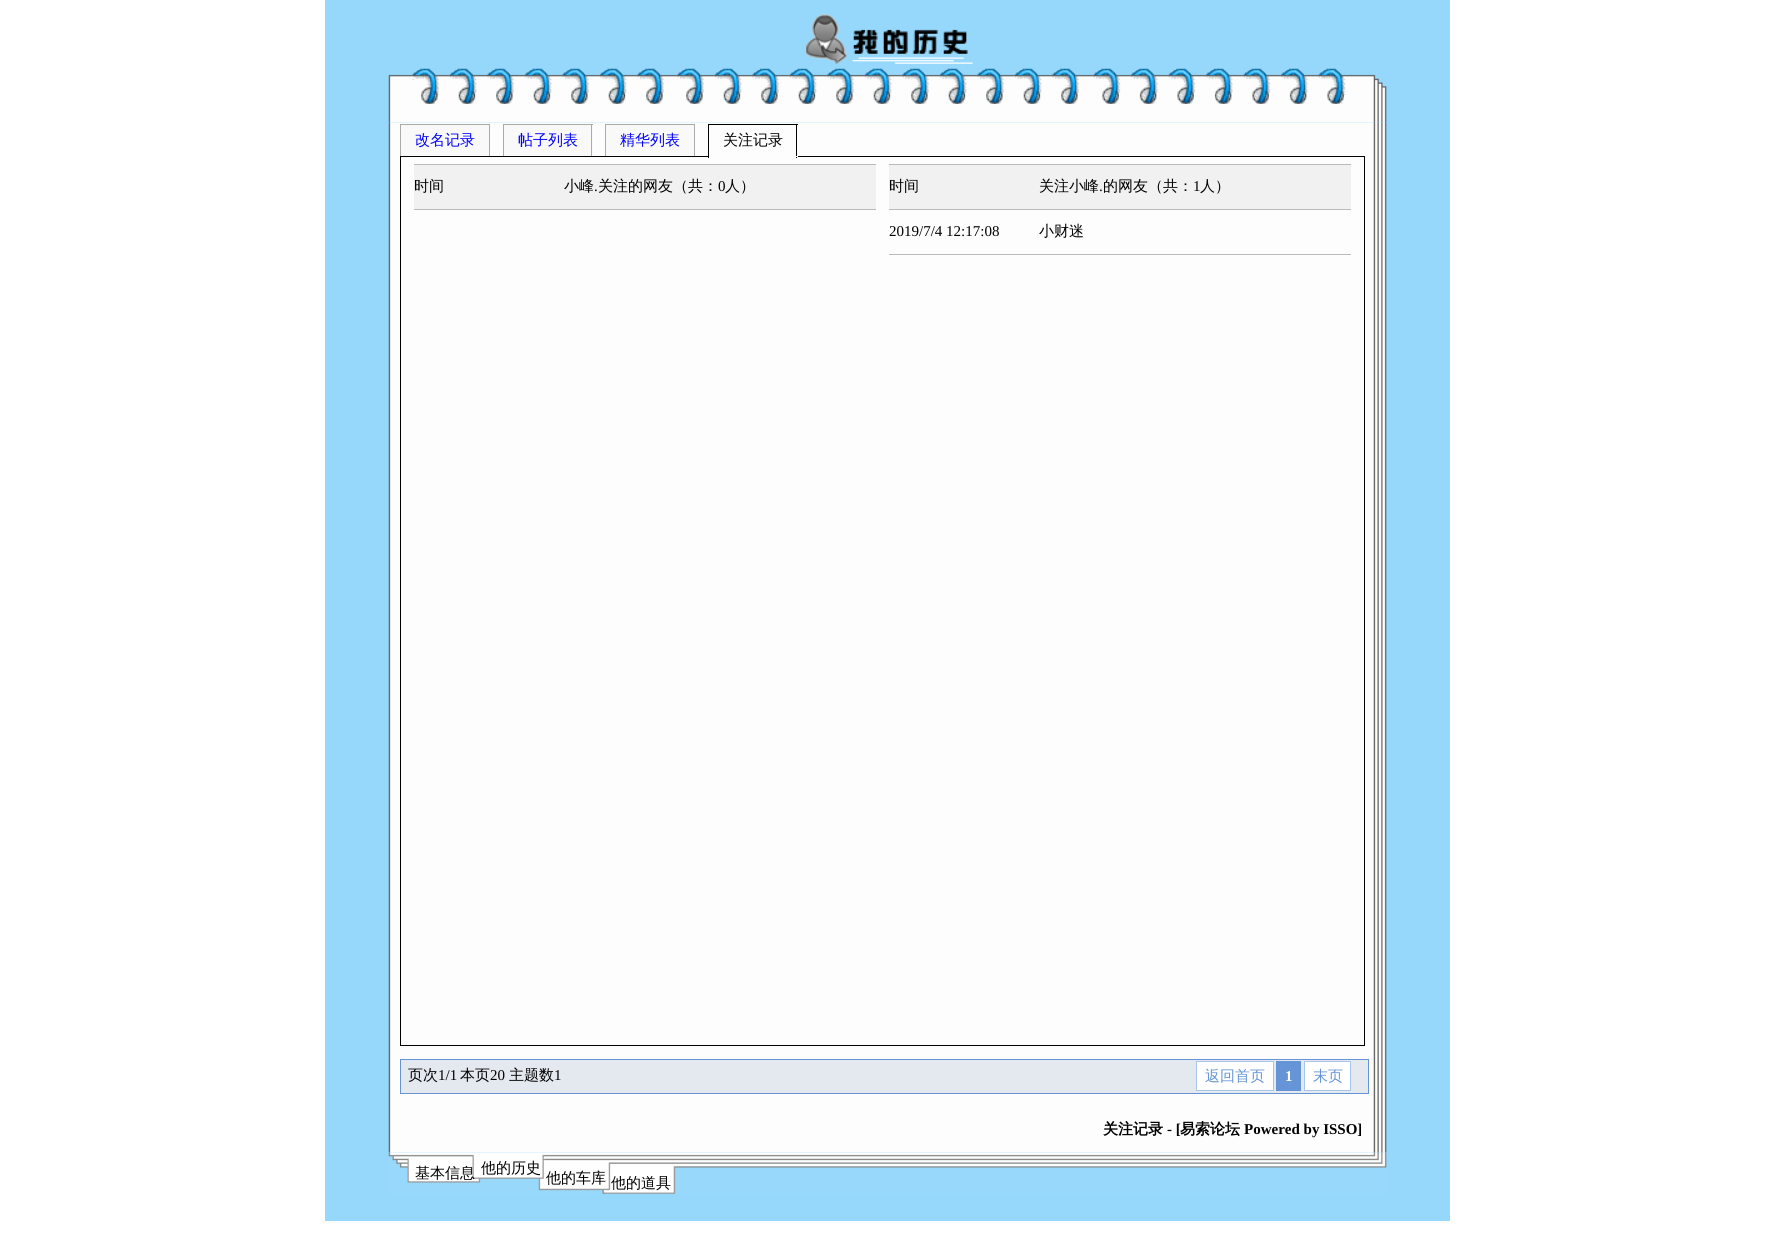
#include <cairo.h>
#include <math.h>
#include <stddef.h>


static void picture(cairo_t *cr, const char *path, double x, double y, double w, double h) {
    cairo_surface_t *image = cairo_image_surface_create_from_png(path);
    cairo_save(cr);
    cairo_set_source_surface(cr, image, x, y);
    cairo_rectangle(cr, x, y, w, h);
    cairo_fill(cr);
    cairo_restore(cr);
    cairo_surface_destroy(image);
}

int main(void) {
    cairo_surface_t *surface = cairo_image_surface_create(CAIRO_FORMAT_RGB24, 1774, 1243);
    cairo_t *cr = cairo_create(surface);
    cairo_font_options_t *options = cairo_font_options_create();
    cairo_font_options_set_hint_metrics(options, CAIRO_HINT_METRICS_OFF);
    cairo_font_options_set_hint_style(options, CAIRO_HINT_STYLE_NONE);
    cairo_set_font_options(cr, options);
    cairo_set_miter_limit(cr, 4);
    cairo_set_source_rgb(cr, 1, 1, 1);
    cairo_paint(cr);
    cairo_set_source_rgb(cr, 0.588, 0.847, 0.988);
    cairo_rectangle(cr, 325, 0, 1125, 1221);
    cairo_fill(cr);
    picture(cr, "img1.png", 805, 13, 43, 51);
    picture(cr, "img2.png", 852, 29, 121, 35);
    picture(cr, "img3.png", 388, 68, 999, 55);
    picture(cr, "img4.png", 388, 122, 999, 1031);
    cairo_set_source_rgb(cr, 0.973, 0.973, 0.973);
    cairo_rectangle(cr, 401, 125, 88, 31);
    cairo_fill(cr);
    cairo_set_source_rgb(cr, 0.667, 0.667, 0.667);
    cairo_rectangle(cr, 400, 124, 90, 1);
    cairo_fill(cr);
    cairo_rectangle(cr, 489, 124, 1, 32);
    cairo_fill(cr);
    cairo_rectangle(cr, 400, 124, 1, 32);
    cairo_fill(cr);
    cairo_select_font_face(cr, "WenQuanYi Zen Hei Medium", CAIRO_FONT_SLANT_NORMAL, CAIRO_FONT_WEIGHT_NORMAL);
    cairo_set_font_size(cr, 15);
    cairo_set_source_rgb(cr, 0, 0, 1);
    cairo_move_to(cr, 415, 145);
    cairo_show_text(cr, "改名记录");
    cairo_set_source_rgb(cr, 0.973, 0.973, 0.973);
    cairo_rectangle(cr, 504, 125, 89, 31);
    cairo_fill(cr);
    cairo_set_source_rgb(cr, 0.667, 0.667, 0.667);
    cairo_rectangle(cr, 503, 124, 90, 1);
    cairo_fill(cr);
    cairo_rectangle(cr, 591, 124, 1, 32);
    cairo_fill(cr);
    cairo_rectangle(cr, 503, 124, 1, 32);
    cairo_fill(cr);
    cairo_set_source_rgb(cr, 0, 0, 1);
    cairo_move_to(cr, 518, 145);
    cairo_show_text(cr, "帖子列表");
    cairo_set_source_rgb(cr, 0.973, 0.973, 0.973);
    cairo_rectangle(cr, 606, 125, 88, 31);
    cairo_fill(cr);
    cairo_set_source_rgb(cr, 0.667, 0.667, 0.667);
    cairo_rectangle(cr, 605, 124, 90, 1);
    cairo_fill(cr);
    cairo_rectangle(cr, 694, 124, 1, 32);
    cairo_fill(cr);
    cairo_rectangle(cr, 605, 124, 1, 32);
    cairo_fill(cr);
    cairo_set_source_rgb(cr, 0, 0, 1);
    cairo_move_to(cr, 620, 145);
    cairo_show_text(cr, "精华列表");
    cairo_set_source_rgb(cr, 0, 0, 0);
    cairo_rectangle(cr, 708, 124, 90, 1);
    cairo_fill(cr);
    cairo_rectangle(cr, 400.5, 156.5, 964, 889);
    cairo_set_line_width(cr, 1);
    cairo_stroke(cr);
    cairo_rectangle(cr, 796, 124, 1, 34);
    cairo_fill(cr);
    cairo_set_source_rgb(cr, 0.992, 0.992, 0.992);
    cairo_rectangle(cr, 708, 156, 90, 1);
    cairo_fill(cr);
    cairo_set_source_rgb(cr, 0, 0, 0);
    cairo_rectangle(cr, 708, 124, 1, 34);
    cairo_fill(cr);
    cairo_move_to(cr, 723, 145);
    cairo_show_text(cr, "关注记录");
    cairo_set_source_rgb(cr, 0.945, 0.945, 0.945);
    cairo_rectangle(cr, 414, 165, 462, 44);
    cairo_fill(cr);
    cairo_set_source_rgb(cr, 0.729, 0.729, 0.729);
    cairo_rectangle(cr, 414, 164, 462, 1);
    cairo_fill(cr);
    cairo_rectangle(cr, 414, 209, 462, 1);
    cairo_fill(cr);
    cairo_set_source_rgb(cr, 0, 0, 0);
    cairo_move_to(cr, 414, 191);
    cairo_show_text(cr, "时间");
    cairo_move_to(cr, 564, 191);
    cairo_show_text(cr, "小峰");
    cairo_select_font_face(cr, "Liberation Serif", CAIRO_FONT_SLANT_NORMAL, CAIRO_FONT_WEIGHT_NORMAL);
    cairo_move_to(cr, 594, 191);
    cairo_show_text(cr, ".");
    cairo_select_font_face(cr, "WenQuanYi Zen Hei Medium", CAIRO_FONT_SLANT_NORMAL, CAIRO_FONT_WEIGHT_NORMAL);
    cairo_move_to(cr, 598, 191);
    cairo_show_text(cr, "关注的网友（共：");
    cairo_select_font_face(cr, "Liberation Serif", CAIRO_FONT_SLANT_NORMAL, CAIRO_FONT_WEIGHT_NORMAL);
    cairo_move_to(cr, 718, 191);
    cairo_show_text(cr, "0");
    cairo_select_font_face(cr, "WenQuanYi Zen Hei Medium", CAIRO_FONT_SLANT_NORMAL, CAIRO_FONT_WEIGHT_NORMAL);
    cairo_move_to(cr, 725, 191);
    cairo_show_text(cr, "人）");
    cairo_set_source_rgb(cr, 0.945, 0.945, 0.945);
    cairo_rectangle(cr, 889, 165, 462, 44);
    cairo_fill(cr);
    cairo_set_source_rgb(cr, 0.729, 0.729, 0.729);
    cairo_rectangle(cr, 889, 164, 462, 1);
    cairo_fill(cr);
    cairo_rectangle(cr, 889, 209, 462, 1);
    cairo_fill(cr);
    cairo_set_source_rgb(cr, 0, 0, 0);
    cairo_move_to(cr, 889, 191);
    cairo_show_text(cr, "时间");
    cairo_move_to(cr, 1039, 191);
    cairo_show_text(cr, "关注小峰");
    cairo_select_font_face(cr, "Liberation Serif", CAIRO_FONT_SLANT_NORMAL, CAIRO_FONT_WEIGHT_NORMAL);
    cairo_move_to(cr, 1099, 191);
    cairo_show_text(cr, ".");
    cairo_select_font_face(cr, "WenQuanYi Zen Hei Medium", CAIRO_FONT_SLANT_NORMAL, CAIRO_FONT_WEIGHT_NORMAL);
    cairo_move_to(cr, 1103, 191);
    cairo_show_text(cr, "的网友（共：");
    cairo_select_font_face(cr, "Liberation Serif", CAIRO_FONT_SLANT_NORMAL, CAIRO_FONT_WEIGHT_NORMAL);
    cairo_move_to(cr, 1193, 191);
    cairo_show_text(cr, "1");
    cairo_select_font_face(cr, "WenQuanYi Zen Hei Medium", CAIRO_FONT_SLANT_NORMAL, CAIRO_FONT_WEIGHT_NORMAL);
    cairo_move_to(cr, 1200, 191);
    cairo_show_text(cr, "人）");
    cairo_set_source_rgb(cr, 0.729, 0.729, 0.729);
    cairo_rectangle(cr, 889, 254, 462, 1);
    cairo_fill(cr);
    cairo_select_font_face(cr, "Liberation Serif", CAIRO_FONT_SLANT_NORMAL, CAIRO_FONT_WEIGHT_NORMAL);
    cairo_set_source_rgb(cr, 0, 0, 0);
    cairo_move_to(cr, 889, 236);
    cairo_show_text(cr, "2019/7/4 12:17:08");
    cairo_select_font_face(cr, "WenQuanYi Zen Hei Medium", CAIRO_FONT_SLANT_NORMAL, CAIRO_FONT_WEIGHT_NORMAL);
    cairo_move_to(cr, 1039, 236);
    cairo_show_text(cr, "小财迷");
    cairo_set_source_rgb(cr, 0.894, 0.91, 0.937);
    cairo_rectangle(cr, 400.5, 1059.5, 968, 34);
    cairo_fill_preserve(cr);
    cairo_set_source_rgb(cr, 0.396, 0.584, 0.839);
    cairo_stroke(cr);
    cairo_set_source_rgb(cr, 0, 0, 0);
    cairo_move_to(cr, 408, 1080);
    cairo_show_text(cr, "页次");
    cairo_select_font_face(cr, "Liberation Serif", CAIRO_FONT_SLANT_NORMAL, CAIRO_FONT_WEIGHT_NORMAL);
    cairo_move_to(cr, 438, 1080);
    cairo_show_text(cr, "1/1");
    cairo_select_font_face(cr, "WenQuanYi Zen Hei Medium", CAIRO_FONT_SLANT_NORMAL, CAIRO_FONT_WEIGHT_NORMAL);
    cairo_move_to(cr, 460, 1080);
    cairo_show_text(cr, "本页");
    cairo_select_font_face(cr, "Liberation Serif", CAIRO_FONT_SLANT_NORMAL, CAIRO_FONT_WEIGHT_NORMAL);
    cairo_move_to(cr, 490, 1080);
    cairo_show_text(cr, "20");
    cairo_select_font_face(cr, "WenQuanYi Zen Hei Medium", CAIRO_FONT_SLANT_NORMAL, CAIRO_FONT_WEIGHT_NORMAL);
    cairo_move_to(cr, 509, 1080);
    cairo_show_text(cr, "主题数");
    cairo_select_font_face(cr, "Liberation Serif", CAIRO_FONT_SLANT_NORMAL, CAIRO_FONT_WEIGHT_NORMAL);
    cairo_move_to(cr, 554, 1080);
    cairo_show_text(cr, "1");
    cairo_set_source_rgb(cr, 1, 1, 1);
    cairo_rectangle(cr, 1196.5, 1061.5, 77, 29);
    cairo_fill_preserve(cr);
    cairo_set_source_rgb(cr, 0.663, 0.773, 0.914);
    cairo_stroke(cr);
    cairo_select_font_face(cr, "WenQuanYi Zen Hei Medium", CAIRO_FONT_SLANT_NORMAL, CAIRO_FONT_WEIGHT_NORMAL);
    cairo_set_source_rgb(cr, 0.396, 0.584, 0.839);
    cairo_move_to(cr, 1205, 1081);
    cairo_show_text(cr, "返回首页");
    cairo_rectangle(cr, 1276, 1061, 25, 30);
    cairo_fill(cr);
    cairo_select_font_face(cr, "Liberation Serif", CAIRO_FONT_SLANT_NORMAL, CAIRO_FONT_WEIGHT_BOLD);
    cairo_set_source_rgb(cr, 1, 1, 1);
    cairo_move_to(cr, 1285, 1081);
    cairo_show_text(cr, "1");
    cairo_rectangle(cr, 1304.5, 1061.5, 46, 29);
    cairo_fill_preserve(cr);
    cairo_set_source_rgb(cr, 0.663, 0.773, 0.914);
    cairo_stroke(cr);
    cairo_select_font_face(cr, "WenQuanYi Zen Hei Medium", CAIRO_FONT_SLANT_NORMAL, CAIRO_FONT_WEIGHT_NORMAL);
    cairo_set_source_rgb(cr, 0.396, 0.584, 0.839);
    cairo_move_to(cr, 1313, 1081);
    cairo_show_text(cr, "末页");
    cairo_select_font_face(cr, "WenQuanYi Zen Hei", CAIRO_FONT_SLANT_NORMAL, CAIRO_FONT_WEIGHT_BOLD);
    cairo_set_source_rgb(cr, 0, 0, 0);
    cairo_move_to(cr, 1103, 1134);
    cairo_show_text(cr, "关注记录");
    cairo_select_font_face(cr, "Liberation Serif", CAIRO_FONT_SLANT_NORMAL, CAIRO_FONT_WEIGHT_BOLD);
    cairo_move_to(cr, 1167, 1134);
    cairo_show_text(cr, "- [");
    cairo_select_font_face(cr, "WenQuanYi Zen Hei", CAIRO_FONT_SLANT_NORMAL, CAIRO_FONT_WEIGHT_BOLD);
    cairo_move_to(cr, 1180, 1134);
    cairo_show_text(cr, "易索论坛");
    cairo_select_font_face(cr, "Liberation Serif", CAIRO_FONT_SLANT_NORMAL, CAIRO_FONT_WEIGHT_BOLD);
    cairo_move_to(cr, 1244, 1134);
    cairo_show_text(cr, "Powered by ISSO]");
    picture(cr, "img5.png", 388, 1152, 999, 42);
    cairo_select_font_face(cr, "WenQuanYi Zen Hei Medium", CAIRO_FONT_SLANT_NORMAL, CAIRO_FONT_WEIGHT_NORMAL);
    cairo_move_to(cr, 415, 1178);
    cairo_show_text(cr, "基本信息");
    cairo_move_to(cr, 481, 1173);
    cairo_show_text(cr, "他的历史");
    cairo_move_to(cr, 546, 1183);
    cairo_show_text(cr, "他的车库");
    cairo_move_to(cr, 611, 1188);
    cairo_show_text(cr, "他的道具");
    cairo_surface_write_to_png(surface, "page.png");
    cairo_font_options_destroy(options);
    cairo_destroy(cr);
    cairo_surface_destroy(surface);
    return 0;
}
